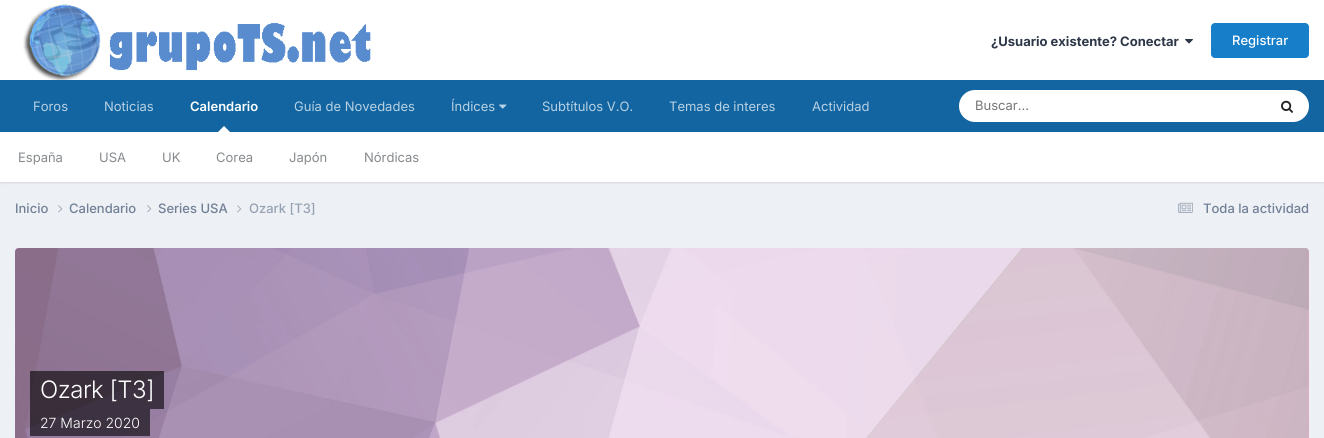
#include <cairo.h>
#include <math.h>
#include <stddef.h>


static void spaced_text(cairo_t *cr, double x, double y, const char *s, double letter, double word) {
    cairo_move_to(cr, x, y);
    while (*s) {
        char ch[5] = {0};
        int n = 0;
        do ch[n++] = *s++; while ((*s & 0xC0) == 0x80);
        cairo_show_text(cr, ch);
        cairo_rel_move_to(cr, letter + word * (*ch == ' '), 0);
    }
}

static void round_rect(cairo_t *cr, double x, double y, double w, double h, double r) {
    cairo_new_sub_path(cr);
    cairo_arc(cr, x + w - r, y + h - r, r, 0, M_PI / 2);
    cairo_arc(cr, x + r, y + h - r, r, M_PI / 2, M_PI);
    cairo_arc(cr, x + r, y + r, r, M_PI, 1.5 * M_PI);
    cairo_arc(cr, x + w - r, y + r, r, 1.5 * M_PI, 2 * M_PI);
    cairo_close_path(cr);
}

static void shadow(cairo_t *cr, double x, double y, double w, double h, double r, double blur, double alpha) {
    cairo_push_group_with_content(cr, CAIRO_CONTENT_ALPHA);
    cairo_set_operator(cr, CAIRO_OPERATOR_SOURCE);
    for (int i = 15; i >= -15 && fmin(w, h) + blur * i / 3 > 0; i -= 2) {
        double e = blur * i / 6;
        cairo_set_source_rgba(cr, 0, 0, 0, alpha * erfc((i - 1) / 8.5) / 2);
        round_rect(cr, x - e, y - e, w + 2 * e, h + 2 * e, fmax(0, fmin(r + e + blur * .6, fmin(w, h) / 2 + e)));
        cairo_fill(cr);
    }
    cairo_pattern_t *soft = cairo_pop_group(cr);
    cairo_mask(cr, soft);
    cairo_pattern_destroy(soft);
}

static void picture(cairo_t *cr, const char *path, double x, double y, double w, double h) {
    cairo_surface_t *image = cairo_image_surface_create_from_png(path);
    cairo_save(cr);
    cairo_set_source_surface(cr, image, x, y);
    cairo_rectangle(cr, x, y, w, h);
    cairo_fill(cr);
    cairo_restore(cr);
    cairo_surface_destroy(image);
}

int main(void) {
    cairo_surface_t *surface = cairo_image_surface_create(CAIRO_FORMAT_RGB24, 1324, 438);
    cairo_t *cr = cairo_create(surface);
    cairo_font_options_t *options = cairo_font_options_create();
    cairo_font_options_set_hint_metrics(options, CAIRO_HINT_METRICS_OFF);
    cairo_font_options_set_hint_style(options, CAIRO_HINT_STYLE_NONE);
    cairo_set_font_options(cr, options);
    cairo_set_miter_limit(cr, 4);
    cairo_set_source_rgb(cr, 0.929, 0.941, 0.957);
    cairo_paint(cr);
    cairo_set_source_rgb(cr, 1, 1, 1);
    cairo_rectangle(cr, 0, 0, 1324, 80);
    cairo_fill(cr);
    picture(cr, "img1.png", 23, 4, 348, 76);
    cairo_select_font_face(cr, "Inter", CAIRO_FONT_SLANT_NORMAL, CAIRO_FONT_WEIGHT_BOLD);
    cairo_set_font_size(cr, 13);
    cairo_set_source_rgb(cr, 0.176, 0.216, 0.282);
    cairo_move_to(cr, 991, 46);
    cairo_show_text(cr, "¿Usuario existente? Conectar");
    picture(cr, "img2.png", 1185, 39, 8, 5);
    cairo_set_source_rgb(cr, 0.09, 0.494, 0.788);
    round_rect(cr, 1211, 23, 98, 35, 4);
    cairo_fill(cr);
    cairo_select_font_face(cr, "Inter Medium", CAIRO_FONT_SLANT_NORMAL, CAIRO_FONT_WEIGHT_NORMAL);
    cairo_set_source_rgb(cr, 1, 1, 1);
    cairo_move_to(cr, 1232, 45);
    cairo_show_text(cr, "Registrar");
    cairo_set_source_rgb(cr, 0.071, 0.396, 0.631);
    cairo_rectangle(cr, 0, 80, 1324, 52);
    cairo_fill(cr);
    cairo_select_font_face(cr, "Inter SemiBold", CAIRO_FONT_SLANT_NORMAL, CAIRO_FONT_WEIGHT_NORMAL);
    cairo_set_source_rgb(cr, 1, 1, 1);
    cairo_move_to(cr, 190, 111);
    cairo_show_text(cr, "Calendario");
    cairo_set_source_rgb(cr, 0, 0, 0);
    shadow(cr, 0, 133, 1324, 50, 0, 1, 0.1);
    cairo_set_source_rgb(cr, 1, 1, 1);
    cairo_new_path(cr);
    cairo_move_to(cr, 230, 132);
    cairo_line_to(cr, 218, 132);
    cairo_line_to(cr, 224, 126);
    cairo_close_path(cr);
    cairo_fill(cr);
    cairo_rectangle(cr, 0, 132, 1324, 50);
    cairo_fill(cr);
    cairo_select_font_face(cr, "Inter", CAIRO_FONT_SLANT_NORMAL, CAIRO_FONT_WEIGHT_NORMAL);
    cairo_set_source_rgb(cr, 0.525, 0.541, 0.553);
    cairo_move_to(cr, 18, 162);
    cairo_show_text(cr, "España");
    cairo_move_to(cr, 99, 162);
    cairo_show_text(cr, "USA");
    cairo_move_to(cr, 162, 162);
    cairo_show_text(cr, "UK");
    cairo_move_to(cr, 216, 162);
    cairo_show_text(cr, "Corea");
    cairo_move_to(cr, 289, 162);
    cairo_show_text(cr, "Japón");
    cairo_move_to(cr, 364, 162);
    cairo_show_text(cr, "Nórdicas");
    cairo_set_source_rgb(cr, 0.722, 0.82, 0.89);
    cairo_move_to(cr, 451, 111);
    cairo_show_text(cr, "Índices");
    picture(cr, "img3.png", 499, 104, 8, 5);
    cairo_move_to(cr, 33, 111);
    cairo_show_text(cr, "Foros");
    cairo_move_to(cr, 104, 111);
    cairo_show_text(cr, "Noticias");
    cairo_move_to(cr, 294, 111);
    cairo_show_text(cr, "Guía de Novedades");
    cairo_move_to(cr, 542, 111);
    cairo_show_text(cr, "Subtítulos V.O.");
    cairo_move_to(cr, 669, 111);
    cairo_show_text(cr, "Temas de interes");
    cairo_move_to(cr, 812, 111);
    cairo_show_text(cr, "Actividad");
    cairo_set_source_rgb(cr, 1, 1, 1);
    round_rect(cr, 959, 90, 350, 32, 16);
    cairo_fill(cr);
    cairo_set_source_rgb(cr, 0.459, 0.459, 0.459);
    cairo_move_to(cr, 975, 110);
    cairo_show_text(cr, "Buscar...");
    picture(cr, "img4.png", 1281, 100, 12, 13);
    cairo_select_font_face(cr, "Inter Medium", CAIRO_FONT_SLANT_NORMAL, CAIRO_FONT_WEIGHT_NORMAL);
    cairo_set_source_rgb(cr, 0.443, 0.502, 0.588);
    cairo_move_to(cr, 15, 213);
    cairo_show_text(cr, "Inicio");
    picture(cr, "img5.png", 58, 205, 5, 8);
    cairo_move_to(cr, 69, 213);
    cairo_show_text(cr, "Calendario");
    picture(cr, "img5.png", 147, 205, 5, 8);
    cairo_move_to(cr, 158, 213);
    cairo_show_text(cr, "Series USA");
    picture(cr, "img5.png", 237, 205, 5, 8);
    cairo_set_source_rgb(cr, 0.588, 0.635, 0.698);
    cairo_move_to(cr, 249, 213);
    cairo_show_text(cr, "Ozark [T3]");
    picture(cr, "img6.png", 1178, 202, 15, 11);
    cairo_set_source_rgb(cr, 0.443, 0.502, 0.588);
    cairo_move_to(cr, 1203, 213);
    cairo_show_text(cr, "Toda la actividad");
    cairo_set_source_rgb(cr, 1, 0.6, 1);
    cairo_new_path(cr);
    cairo_move_to(cr, 19, 248);
    cairo_line_to(cr, 1305, 248);
    cairo_curve_to(cr, 1307, 248, 1309, 250, 1309, 252);
    cairo_line_to(cr, 1309, 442);
    cairo_line_to(cr, 15, 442);
    cairo_line_to(cr, 15, 252);
    cairo_curve_to(cr, 15, 250, 17, 248, 19, 248);
    cairo_close_path(cr);
    cairo_fill(cr);
    picture(cr, "img7.png", 15, 248, 1294, 190);
    cairo_set_source_rgba(cr, 0, 0, 0, 0.6);
    cairo_rectangle(cr, 30, 371, 134, 38);
    cairo_fill(cr);
    cairo_select_font_face(cr, "Inter Light", CAIRO_FONT_SLANT_NORMAL, CAIRO_FONT_WEIGHT_NORMAL);
    cairo_set_font_size(cr, 24);
    cairo_set_source_rgb(cr, 1, 1, 1);
    spaced_text(cr, 40, 398, "Ozark [T3]", -0.5, 0);
    cairo_set_source_rgba(cr, 0, 0, 0, 0.6);
    cairo_rectangle(cr, 30, 409, 120, 27);
    cairo_fill(cr);
    cairo_set_font_size(cr, 14);
    cairo_set_source_rgb(cr, 1, 1, 1);
    cairo_move_to(cr, 40, 428);
    cairo_show_text(cr, "27 Marzo 2020");
    cairo_surface_write_to_png(surface, "page.png");
    cairo_font_options_destroy(options);
    cairo_destroy(cr);
    cairo_surface_destroy(surface);
    return 0;
}
